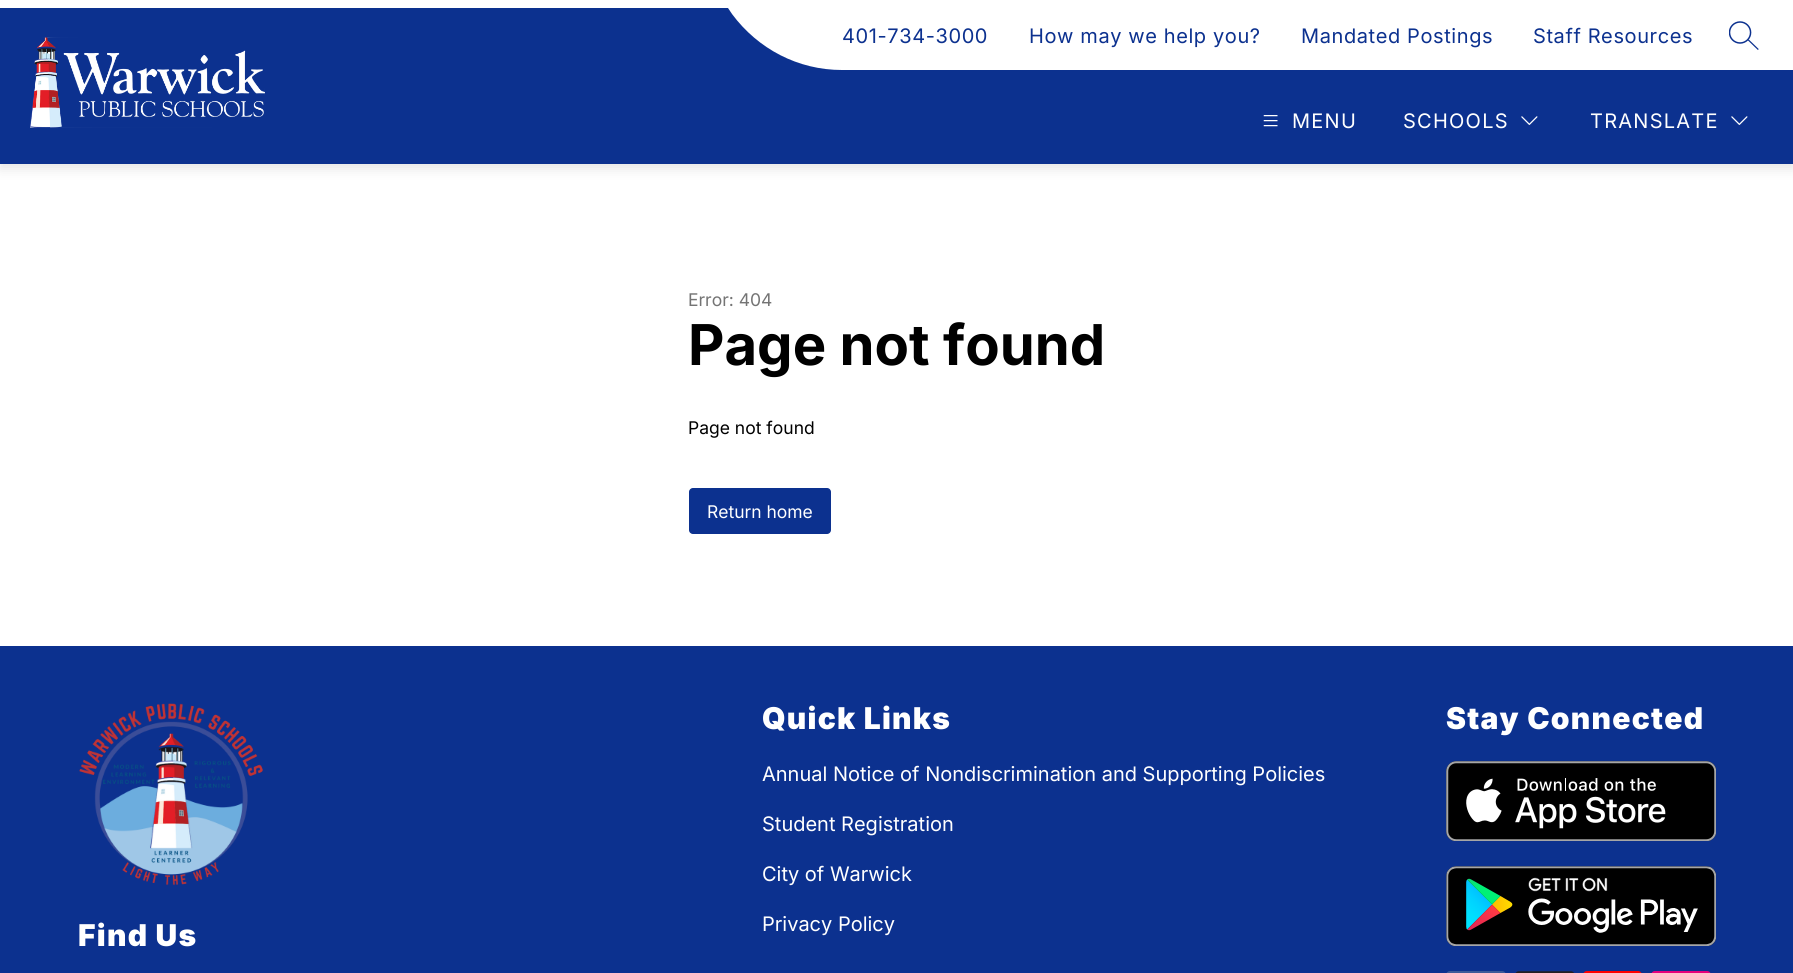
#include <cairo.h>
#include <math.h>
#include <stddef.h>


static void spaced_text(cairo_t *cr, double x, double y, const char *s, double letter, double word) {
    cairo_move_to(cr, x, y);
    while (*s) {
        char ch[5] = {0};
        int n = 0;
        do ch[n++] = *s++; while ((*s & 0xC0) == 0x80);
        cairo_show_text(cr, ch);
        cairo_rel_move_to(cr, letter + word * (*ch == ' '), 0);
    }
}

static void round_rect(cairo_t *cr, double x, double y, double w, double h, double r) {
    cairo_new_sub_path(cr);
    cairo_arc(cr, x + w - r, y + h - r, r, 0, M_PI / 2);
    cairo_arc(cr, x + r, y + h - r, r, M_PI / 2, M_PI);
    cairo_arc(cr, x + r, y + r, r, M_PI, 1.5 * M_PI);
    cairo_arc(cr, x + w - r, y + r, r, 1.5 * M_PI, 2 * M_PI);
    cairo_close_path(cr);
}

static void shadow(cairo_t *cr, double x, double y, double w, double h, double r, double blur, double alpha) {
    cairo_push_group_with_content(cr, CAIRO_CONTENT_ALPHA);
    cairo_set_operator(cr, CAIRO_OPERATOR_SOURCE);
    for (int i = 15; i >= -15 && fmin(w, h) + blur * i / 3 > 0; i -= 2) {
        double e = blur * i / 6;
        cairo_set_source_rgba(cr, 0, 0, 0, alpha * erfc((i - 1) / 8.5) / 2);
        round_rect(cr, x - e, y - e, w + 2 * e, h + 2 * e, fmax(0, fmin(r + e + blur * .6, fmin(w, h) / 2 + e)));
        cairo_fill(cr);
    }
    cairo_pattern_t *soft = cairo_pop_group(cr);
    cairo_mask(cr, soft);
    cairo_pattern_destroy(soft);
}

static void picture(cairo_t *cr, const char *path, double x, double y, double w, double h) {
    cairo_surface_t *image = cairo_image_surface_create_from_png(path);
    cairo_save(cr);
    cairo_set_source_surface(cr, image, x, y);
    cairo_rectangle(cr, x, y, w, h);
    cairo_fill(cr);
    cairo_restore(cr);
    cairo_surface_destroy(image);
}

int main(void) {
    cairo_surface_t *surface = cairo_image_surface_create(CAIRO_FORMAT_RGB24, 1793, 973);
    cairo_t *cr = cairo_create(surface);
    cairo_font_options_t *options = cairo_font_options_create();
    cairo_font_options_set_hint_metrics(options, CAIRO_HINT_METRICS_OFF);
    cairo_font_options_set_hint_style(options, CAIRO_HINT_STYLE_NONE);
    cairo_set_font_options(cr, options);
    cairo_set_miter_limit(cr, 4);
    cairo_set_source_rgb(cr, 1, 1, 1);
    cairo_paint(cr);
    cairo_set_source_rgb(cr, 0, 0, 0);
    shadow(cr, 0, 5, 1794, 164, 0, 6, 0.1);
    cairo_set_source_rgb(cr, 0.047, 0.192, 0.561);
    cairo_rectangle(cr, 0, 8, 1793, 156);
    cairo_fill(cr);
    cairo_set_source_rgb(cr, 1, 1, 1);
    cairo_rectangle(cr, 0, 0, 728, 8);
    cairo_fill(cr);
    picture(cr, "img1.png", 30, 37, 235, 91);
    cairo_rectangle(cr, 845, 0, 948, 70);
    cairo_fill(cr);
    cairo_new_path(cr);
    cairo_move_to(cr, 842, 70);
    cairo_line_to(cr, 845, 70);
    cairo_line_to(cr, 845, 0);
    cairo_line_to(cr, 725, 0);
    cairo_curve_to(cr, 724, 0, 723, 1, 724, 2);
    cairo_line_to(cr, 732, 14);
    cairo_curve_to(cr, 758, 49, 798, 70, 842, 70);
    cairo_close_path(cr);
    cairo_fill(cr);
    cairo_select_font_face(cr, "Inter", CAIRO_FONT_SLANT_NORMAL, CAIRO_FONT_WEIGHT_NORMAL);
    cairo_set_font_size(cr, 20);
    cairo_set_source_rgb(cr, 0.047, 0.192, 0.561);
    spaced_text(cr, 842, 43, "401-734-3000", 0.6, 0);
    spaced_text(cr, 1029, 43, "How may we help you?", 0.6, 0);
    spaced_text(cr, 1301, 43, "Mandated Postings", 0.6, 0);
    spaced_text(cr, 1533, 43, "Staff Resources", 0.6, 0);
    picture(cr, "img2.png", 1729, 21, 30, 29);
    picture(cr, "img3.png", 1263, 115, 15, 12);
    cairo_set_source_rgb(cr, 1, 1, 1);
    spaced_text(cr, 1292, 128, "MENU", 1.25, 0);
    spaced_text(cr, 1403, 128, "SCHOOLS", 1.25, 0);
    picture(cr, "img4.png", 1521, 116, 17, 9);
    spaced_text(cr, 1590, 128, "TRANSLATE", 1.25, 0);
    picture(cr, "img4.png", 1731, 116, 17, 9);
    cairo_set_font_size(cr, 17.5);
    cairo_set_source_rgb(cr, 0.455, 0.455, 0.455);
    cairo_move_to(cr, 688, 306);
    cairo_show_text(cr, "Error: 404");
    cairo_select_font_face(cr, "Inter", CAIRO_FONT_SLANT_NORMAL, CAIRO_FONT_WEIGHT_BOLD);
    cairo_set_font_size(cr, 56.25);
    cairo_set_source_rgb(cr, 0, 0, 0);
    cairo_move_to(cr, 688, 365);
    cairo_show_text(cr, "Page not found");
    cairo_select_font_face(cr, "Inter", CAIRO_FONT_SLANT_NORMAL, CAIRO_FONT_WEIGHT_NORMAL);
    cairo_set_font_size(cr, 17.5);
    cairo_move_to(cr, 688, 434);
    cairo_show_text(cr, "Page not found");
    cairo_set_source_rgb(cr, 0.047, 0.192, 0.561);
    round_rect(cr, 689, 488, 142, 46, 4);
    cairo_fill(cr);
    cairo_set_source_rgb(cr, 1, 1, 1);
    cairo_move_to(cr, 707, 518);
    cairo_show_text(cr, "Return home");
    cairo_set_source_rgb(cr, 0.047, 0.192, 0.561);
    cairo_rectangle(cr, 0, 646, 1793, 327);
    cairo_fill(cr);
    cairo_select_font_face(cr, "Inter Black", CAIRO_FONT_SLANT_NORMAL, CAIRO_FONT_WEIGHT_NORMAL);
    cairo_set_font_size(cr, 30);
    cairo_set_source_rgb(cr, 1, 1, 1);
    spaced_text(cr, 762, 729, "Quick Links", 1.25, 0);
    cairo_select_font_face(cr, "Inter", CAIRO_FONT_SLANT_NORMAL, CAIRO_FONT_WEIGHT_NORMAL);
    cairo_set_font_size(cr, 20);
    cairo_move_to(cr, 762, 781);
    cairo_show_text(cr, "Annual Notice of Nondiscrimination and Supporting Policies");
    cairo_move_to(cr, 762, 831);
    cairo_show_text(cr, "Student Registration");
    cairo_move_to(cr, 762, 881);
    cairo_show_text(cr, "City of Warwick");
    cairo_move_to(cr, 762, 931);
    cairo_show_text(cr, "Privacy Policy");
    cairo_select_font_face(cr, "Inter Black", CAIRO_FONT_SLANT_NORMAL, CAIRO_FONT_WEIGHT_NORMAL);
    cairo_set_font_size(cr, 30);
    spaced_text(cr, 1446, 729, "Stay Connected", 1.25, 0);
    picture(cr, "img5.png", 1446, 761, 270, 80);
    picture(cr, "img6.png", 1446, 866, 270, 80);
    picture(cr, "img7.png", 1446, 971, 60, 2);
    picture(cr, "img8.png", 1515, 971, 59, 2);
    picture(cr, "img9.png", 1583, 971, 59, 2);
    picture(cr, "img10.png", 1651, 971, 60, 2);
    picture(cr, "img11.png", 79, 703, 184, 183);
    spaced_text(cr, 78, 946, "Find Us", 1.25, 0);
    cairo_surface_write_to_png(surface, "page.png");
    cairo_font_options_destroy(options);
    cairo_destroy(cr);
    cairo_surface_destroy(surface);
    return 0;
}
